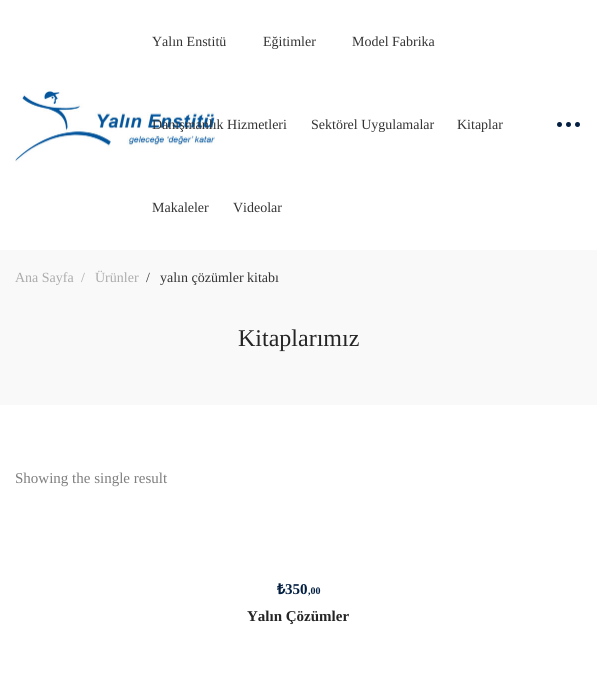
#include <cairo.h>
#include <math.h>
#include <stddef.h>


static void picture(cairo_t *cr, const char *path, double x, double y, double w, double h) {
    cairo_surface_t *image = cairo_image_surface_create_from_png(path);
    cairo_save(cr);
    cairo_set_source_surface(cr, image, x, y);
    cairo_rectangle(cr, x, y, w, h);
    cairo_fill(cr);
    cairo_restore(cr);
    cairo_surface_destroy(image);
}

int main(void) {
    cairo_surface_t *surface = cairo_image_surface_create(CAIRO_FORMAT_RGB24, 597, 684);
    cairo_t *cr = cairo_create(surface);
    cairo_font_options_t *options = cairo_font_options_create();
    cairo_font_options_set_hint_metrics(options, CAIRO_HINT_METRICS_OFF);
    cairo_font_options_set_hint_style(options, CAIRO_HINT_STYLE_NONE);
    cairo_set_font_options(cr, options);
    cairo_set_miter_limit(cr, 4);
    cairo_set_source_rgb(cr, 1, 1, 1);
    cairo_paint(cr);
    picture(cr, "img1.png", 15, 88, 200, 74);
    cairo_select_font_face(cr, "Liberation Serif", CAIRO_FONT_SLANT_NORMAL, CAIRO_FONT_WEIGHT_NORMAL);
    cairo_set_font_size(cr, 14);
    cairo_set_source_rgb(cr, 0.2, 0.2, 0.2);
    cairo_move_to(cr, 152, 46);
    cairo_show_text(cr, "Yalın Enstitü");
    cairo_move_to(cr, 263, 46);
    cairo_show_text(cr, "Eğitimler");
    cairo_move_to(cr, 352, 46);
    cairo_show_text(cr, "Model Fabrika");
    cairo_move_to(cr, 152, 129);
    cairo_show_text(cr, "Danışmanlık Hizmetleri");
    cairo_move_to(cr, 311, 129);
    cairo_show_text(cr, "Sektörel Uygulamalar");
    cairo_move_to(cr, 457, 129);
    cairo_show_text(cr, "Kitaplar");
    cairo_move_to(cr, 152, 212);
    cairo_show_text(cr, "Makaleler");
    cairo_move_to(cr, 233, 212);
    cairo_show_text(cr, "Videolar");
    cairo_set_source_rgb(cr, 0.012, 0.122, 0.259);
    cairo_new_path(cr);
    cairo_arc(cr, 559.5, 124.5, 2.5, 0, 2 * M_PI);
    cairo_fill(cr);
    cairo_arc(cr, 568.5, 124.5, 2.5, 0, 2 * M_PI);
    cairo_fill(cr);
    cairo_arc(cr, 577.5, 124.5, 2.5, 0, 2 * M_PI);
    cairo_fill(cr);
    cairo_set_source_rgb(cr, 0.973, 0.973, 0.973);
    cairo_rectangle(cr, 0, 250, 597, 155);
    cairo_fill(cr);
    cairo_set_source_rgb(cr, 0.671, 0.671, 0.671);
    cairo_move_to(cr, 15, 282);
    cairo_show_text(cr, "Ana Sayfa");
    cairo_move_to(cr, 81, 282);
    cairo_show_text(cr, "/");
    cairo_move_to(cr, 95, 282);
    cairo_show_text(cr, "Ürünler");
    cairo_set_source_rgb(cr, 0.2, 0.2, 0.2);
    cairo_move_to(cr, 146, 282);
    cairo_show_text(cr, "/");
    cairo_move_to(cr, 160, 282);
    cairo_show_text(cr, "yalın çözümler kitabı");
    cairo_set_font_size(cr, 24);
    cairo_set_source_rgb(cr, 0.145, 0.145, 0.145);
    cairo_move_to(cr, 238, 346);
    cairo_show_text(cr, "Kitaplarımız");
    cairo_set_font_size(cr, 15);
    cairo_set_source_rgb(cr, 0.494, 0.494, 0.494);
    cairo_move_to(cr, 15, 483);
    cairo_show_text(cr, "Showing the single result");
    cairo_select_font_face(cr, "Noto Sans", CAIRO_FONT_SLANT_NORMAL, CAIRO_FONT_WEIGHT_BOLD);
    cairo_set_source_rgb(cr, 0.012, 0.122, 0.259);
    cairo_move_to(cr, 277, 594);
    cairo_show_text(cr, "₺");
    cairo_select_font_face(cr, "Liberation Serif", CAIRO_FONT_SLANT_NORMAL, CAIRO_FONT_WEIGHT_BOLD);
    cairo_move_to(cr, 285, 594);
    cairo_show_text(cr, "350");
    cairo_set_font_size(cr, 10);
    cairo_move_to(cr, 308, 594);
    cairo_show_text(cr, ",00");
    cairo_set_font_size(cr, 15);
    cairo_set_source_rgb(cr, 0.145, 0.145, 0.145);
    cairo_move_to(cr, 247, 621);
    cairo_show_text(cr, "Yalın Çözümler");
    cairo_surface_write_to_png(surface, "page.png");
    cairo_font_options_destroy(options);
    cairo_destroy(cr);
    cairo_surface_destroy(surface);
    return 0;
}
